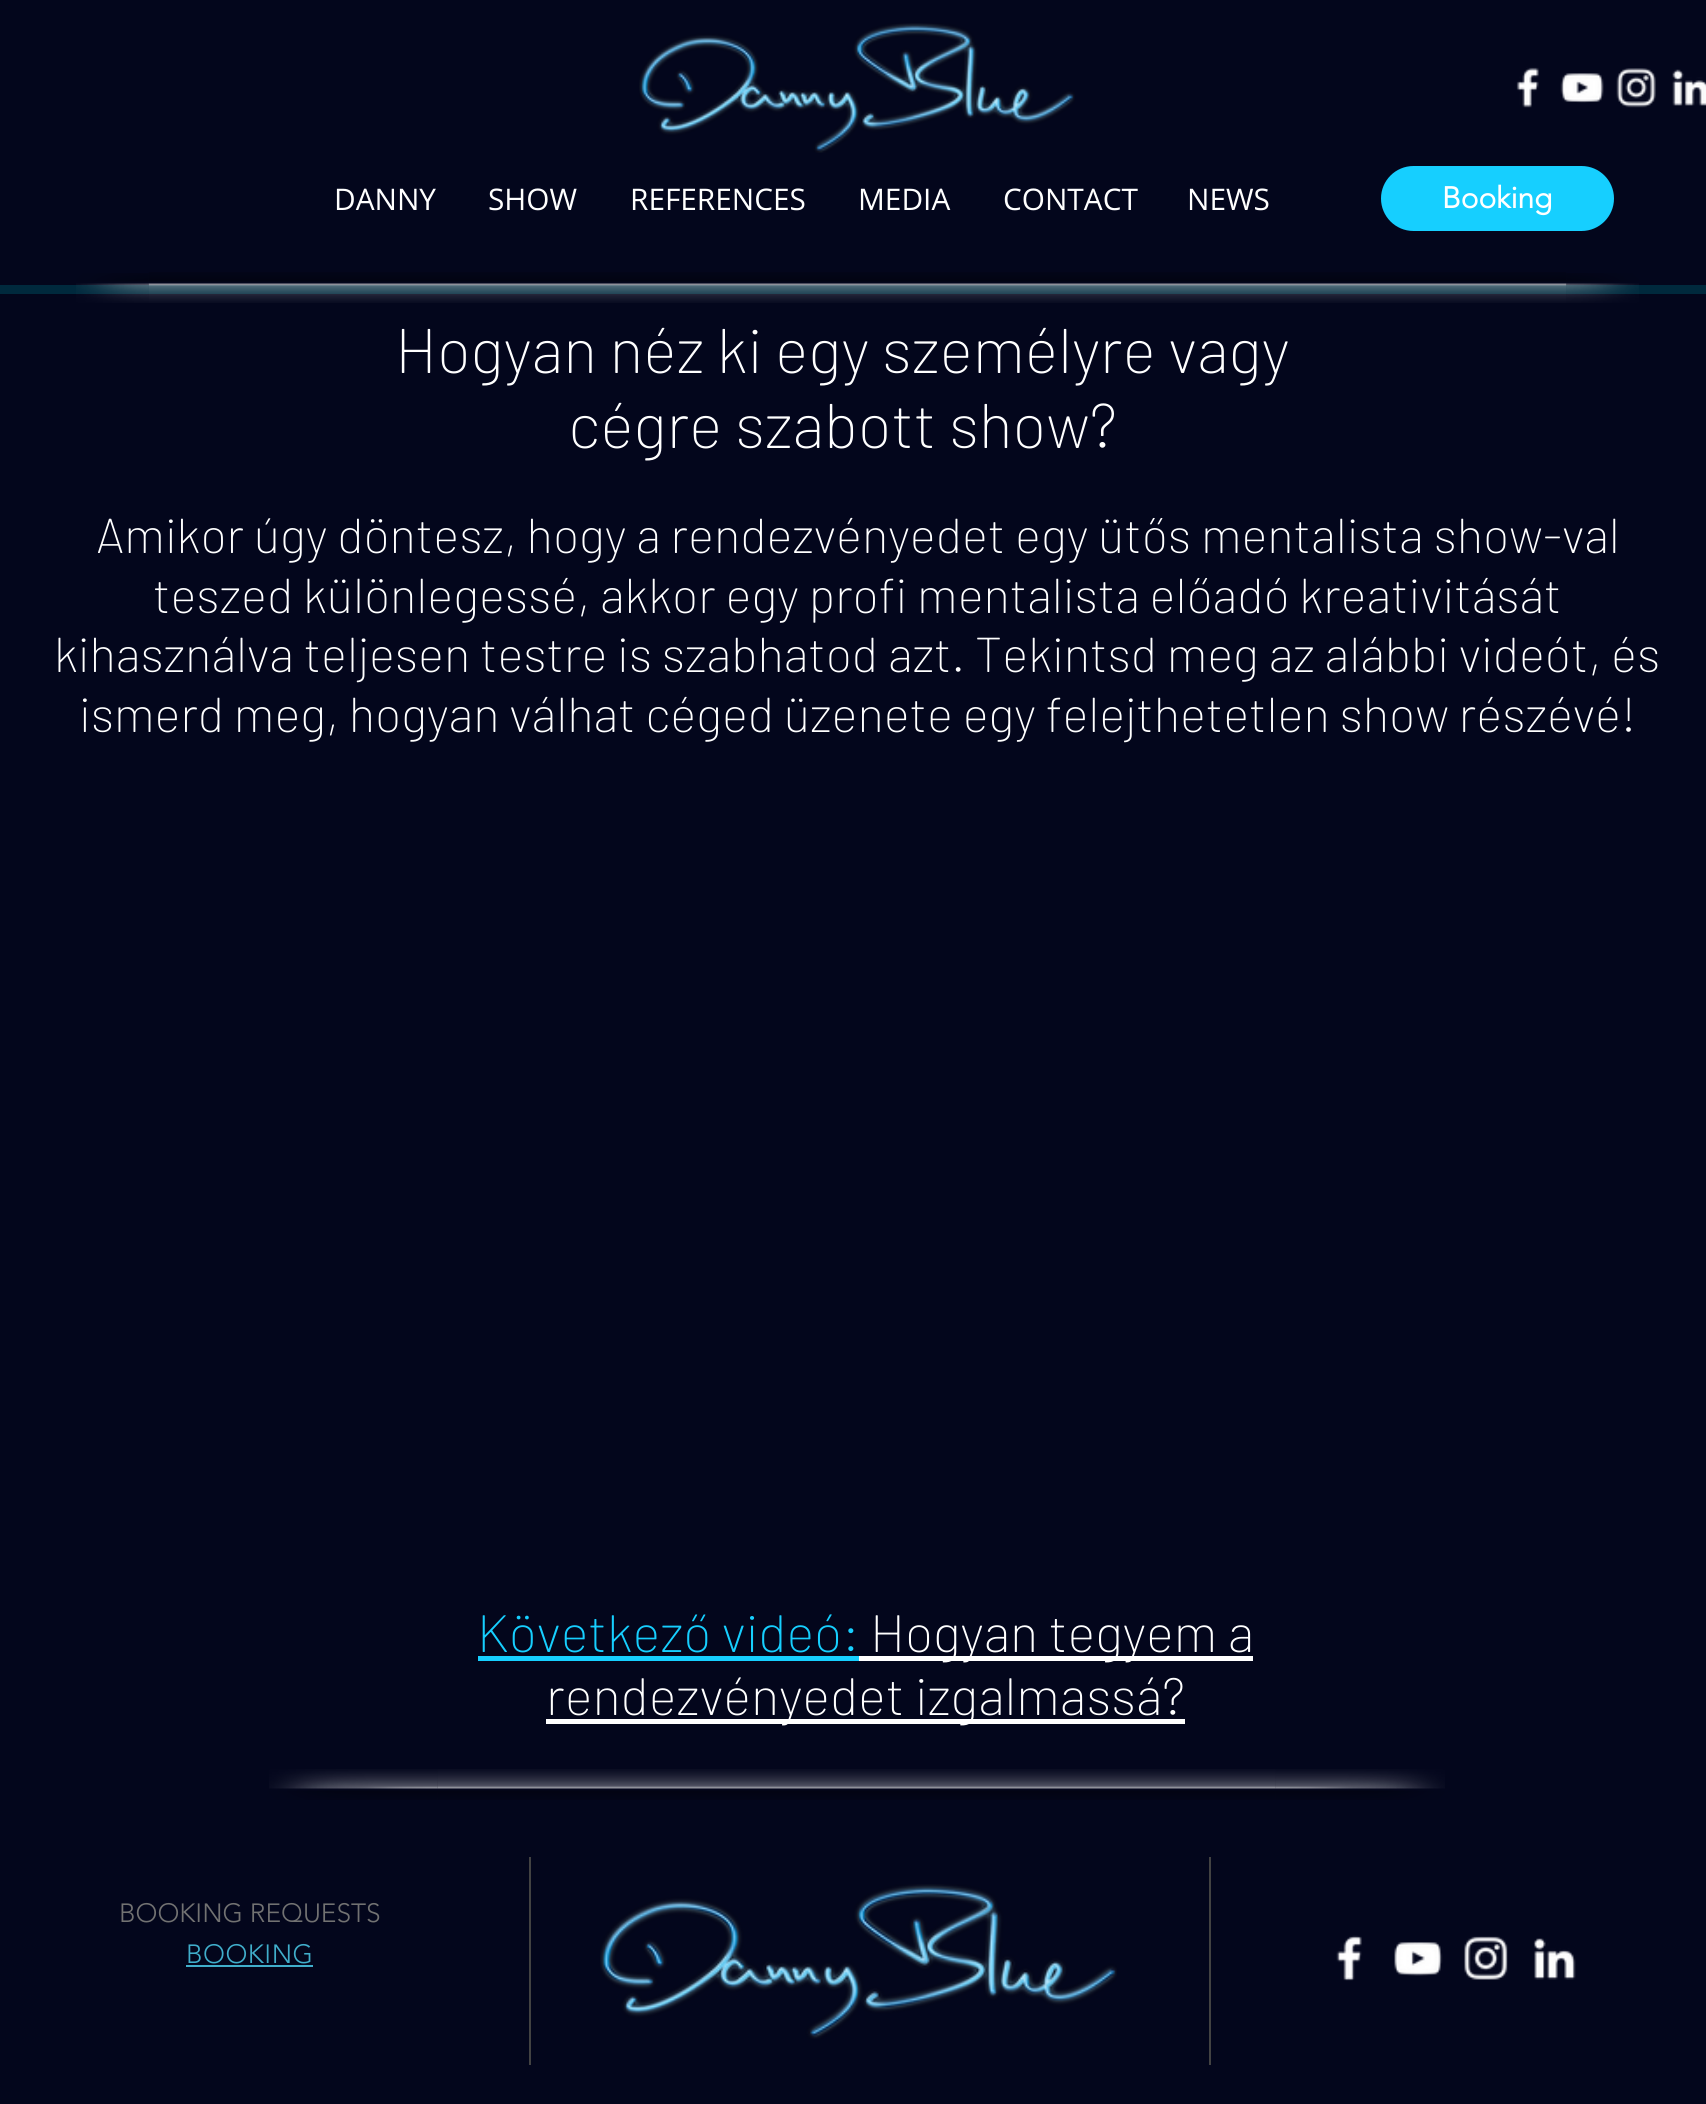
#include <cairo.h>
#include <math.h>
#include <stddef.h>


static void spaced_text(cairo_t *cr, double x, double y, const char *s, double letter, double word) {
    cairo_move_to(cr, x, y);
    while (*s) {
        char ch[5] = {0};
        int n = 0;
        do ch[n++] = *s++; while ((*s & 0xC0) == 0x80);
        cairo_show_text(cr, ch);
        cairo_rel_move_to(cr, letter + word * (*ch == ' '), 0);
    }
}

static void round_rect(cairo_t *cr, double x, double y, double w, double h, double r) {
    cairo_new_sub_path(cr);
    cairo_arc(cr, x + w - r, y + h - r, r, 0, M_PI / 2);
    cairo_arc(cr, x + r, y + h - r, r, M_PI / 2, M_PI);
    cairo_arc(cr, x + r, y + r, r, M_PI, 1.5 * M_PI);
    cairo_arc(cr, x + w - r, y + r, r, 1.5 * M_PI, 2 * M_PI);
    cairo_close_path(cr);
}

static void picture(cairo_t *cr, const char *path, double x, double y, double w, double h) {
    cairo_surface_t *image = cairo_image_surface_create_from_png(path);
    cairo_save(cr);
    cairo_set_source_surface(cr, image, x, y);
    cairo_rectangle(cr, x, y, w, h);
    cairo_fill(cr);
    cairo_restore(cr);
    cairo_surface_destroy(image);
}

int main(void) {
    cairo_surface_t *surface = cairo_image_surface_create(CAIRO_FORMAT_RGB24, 1706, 2104);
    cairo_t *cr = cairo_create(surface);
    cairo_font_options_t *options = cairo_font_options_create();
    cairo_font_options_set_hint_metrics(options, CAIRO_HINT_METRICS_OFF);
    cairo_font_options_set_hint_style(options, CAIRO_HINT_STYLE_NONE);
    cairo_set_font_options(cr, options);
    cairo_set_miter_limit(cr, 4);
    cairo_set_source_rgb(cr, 0.012, 0.024, 0.11);
    cairo_paint(cr);
    picture(cr, "img1.png", 639, 23, 436, 130);
    picture(cr, "img2.png", 1516, 67, 23, 41);
    picture(cr, "img3.png", 1560, 73, 44, 30);
    picture(cr, "img4.png", 1616, 68, 40, 40);
    picture(cr, "img5.png", 1672, 69, 34, 37);
    cairo_select_font_face(cr, "Open Sans", CAIRO_FONT_SLANT_NORMAL, CAIRO_FONT_WEIGHT_NORMAL);
    cairo_set_font_size(cr, 29.75);
    cairo_set_source_rgb(cr, 1, 1, 1);
    cairo_move_to(cr, 334, 210);
    cairo_show_text(cr, "DANNY");
    cairo_move_to(cr, 488, 210);
    cairo_show_text(cr, "SHOW");
    cairo_move_to(cr, 630, 210);
    cairo_show_text(cr, "REFERENCES");
    cairo_move_to(cr, 858, 210);
    cairo_show_text(cr, "MEDIA");
    cairo_move_to(cr, 1003, 210);
    cairo_show_text(cr, "CONTACT");
    cairo_move_to(cr, 1187, 210);
    cairo_show_text(cr, "NEWS");
    cairo_set_source_rgb(cr, 0.086, 0.812, 1);
    round_rect(cr, 1381, 166, 233, 65, 32.5);
    cairo_fill(cr);
    cairo_select_font_face(cr, "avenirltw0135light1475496", CAIRO_FONT_SLANT_NORMAL, CAIRO_FONT_WEIGHT_BOLD);
    cairo_set_source_rgb(cr, 1, 1, 1);
    cairo_move_to(cr, 1442, 208);
    cairo_show_text(cr, "Booking");
    cairo_set_source_rgb(cr, 0, 0.161, 0.239);
    cairo_rectangle(cr, 0, 285, 1706, 9);
    cairo_fill(cr);
    picture(cr, "img6.png", 148, 272, 1419, 31);
    picture(cr, "img7.png", 76, 273, 73, 30);
    picture(cr, "img8.png", 1566, 273, 73, 30);
    cairo_select_font_face(cr, "Barlow ExtraLight", CAIRO_FONT_SLANT_NORMAL, CAIRO_FONT_WEIGHT_NORMAL);
    cairo_set_font_size(cr, 63);
    cairo_set_source_rgb(cr, 1, 1, 1);
    cairo_move_to(cr, 395, 373);
    cairo_show_text(cr, "Hogyan néz ki egy személyre vagy");
    cairo_move_to(cr, 568, 448);
    cairo_show_text(cr, "cégre szabott show?");
    cairo_set_font_size(cr, 49);
    cairo_move_to(cr, 96, 553);
    cairo_show_text(cr, "Amikor úgy döntesz, hogy a rendezvényedet egy ütős mentalista show-val");
    cairo_move_to(cr, 153, 613);
    cairo_show_text(cr, "teszed különlegessé, akkor egy profi mentalista előadó kreativitását");
    cairo_move_to(cr, 54, 672);
    cairo_show_text(cr, "kihasználva teljesen testre is szabhatod azt. Tekintsd meg az alábbi videót, és");
    cairo_move_to(cr, 79, 732);
    cairo_show_text(cr, "ismerd meg, hogyan válhat céged üzenete egy felejthetetlen show részévé!");
    cairo_set_font_size(cr, 52.5);
    cairo_set_source_rgb(cr, 0.086, 0.812, 1);
    cairo_move_to(cr, 477, 1652);
    cairo_show_text(cr, "Következő videó:");
    cairo_rectangle(cr, 478, 1656, 381, 5);
    cairo_fill(cr);
    cairo_set_source_rgb(cr, 1, 1, 1);
    cairo_rectangle(cr, 859, 1656, 394, 5);
    cairo_fill(cr);
    cairo_move_to(cr, 870, 1652);
    cairo_show_text(cr, "Hogyan tegyem a");
    cairo_rectangle(cr, 546, 1719, 639, 5);
    cairo_fill(cr);
    cairo_move_to(cr, 546, 1715);
    cairo_show_text(cr, "rendezvényedet izgalmassá?");
    picture(cr, "img10.png", 437, 1769, 839, 31);
    picture(cr, "img9.png", 269, 1769, 169, 31);
    picture(cr, "img11.png", 1275, 1769, 170, 31);
    cairo_select_font_face(cr, "avenirltw0135light1475496 Light", CAIRO_FONT_SLANT_NORMAL, CAIRO_FONT_WEIGHT_NORMAL);
    cairo_set_font_size(cr, 26.25);
    cairo_set_source_rgb(cr, 0.447, 0.447, 0.447);
    cairo_move_to(cr, 119, 1922);
    cairo_show_text(cr, "BOOKING REQUESTS");
    cairo_set_source_rgb(cr, 0.251, 0.682, 0.796);
    spaced_text(cr, 186, 1963, "BOOKING", 0.5, 0);
    cairo_rectangle(cr, 186, 1965, 127, 2);
    cairo_fill(cr);
    cairo_set_source_rgb(cr, 0.259, 0.259, 0.259);
    cairo_rectangle(cr, 529, 1857, 2, 208);
    cairo_fill(cr);
    picture(cr, "img12.png", 600, 1884, 517, 155);
    cairo_rectangle(cr, 1209, 1857, 2, 208);
    cairo_fill(cr);
    picture(cr, "img13.png", 1336, 1935, 26, 46);
    picture(cr, "img14.png", 1394, 1942, 49, 34);
    picture(cr, "img15.png", 1464, 1936, 44, 44);
    picture(cr, "img16.png", 1533, 1938, 43, 42);
    cairo_surface_write_to_png(surface, "page.png");
    cairo_font_options_destroy(options);
    cairo_destroy(cr);
    cairo_surface_destroy(surface);
    return 0;
}
